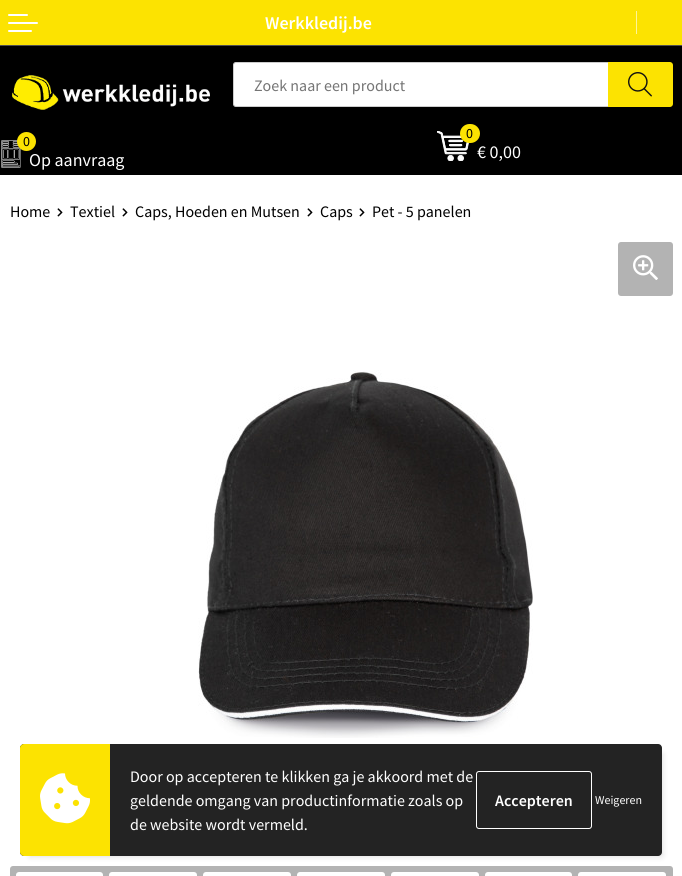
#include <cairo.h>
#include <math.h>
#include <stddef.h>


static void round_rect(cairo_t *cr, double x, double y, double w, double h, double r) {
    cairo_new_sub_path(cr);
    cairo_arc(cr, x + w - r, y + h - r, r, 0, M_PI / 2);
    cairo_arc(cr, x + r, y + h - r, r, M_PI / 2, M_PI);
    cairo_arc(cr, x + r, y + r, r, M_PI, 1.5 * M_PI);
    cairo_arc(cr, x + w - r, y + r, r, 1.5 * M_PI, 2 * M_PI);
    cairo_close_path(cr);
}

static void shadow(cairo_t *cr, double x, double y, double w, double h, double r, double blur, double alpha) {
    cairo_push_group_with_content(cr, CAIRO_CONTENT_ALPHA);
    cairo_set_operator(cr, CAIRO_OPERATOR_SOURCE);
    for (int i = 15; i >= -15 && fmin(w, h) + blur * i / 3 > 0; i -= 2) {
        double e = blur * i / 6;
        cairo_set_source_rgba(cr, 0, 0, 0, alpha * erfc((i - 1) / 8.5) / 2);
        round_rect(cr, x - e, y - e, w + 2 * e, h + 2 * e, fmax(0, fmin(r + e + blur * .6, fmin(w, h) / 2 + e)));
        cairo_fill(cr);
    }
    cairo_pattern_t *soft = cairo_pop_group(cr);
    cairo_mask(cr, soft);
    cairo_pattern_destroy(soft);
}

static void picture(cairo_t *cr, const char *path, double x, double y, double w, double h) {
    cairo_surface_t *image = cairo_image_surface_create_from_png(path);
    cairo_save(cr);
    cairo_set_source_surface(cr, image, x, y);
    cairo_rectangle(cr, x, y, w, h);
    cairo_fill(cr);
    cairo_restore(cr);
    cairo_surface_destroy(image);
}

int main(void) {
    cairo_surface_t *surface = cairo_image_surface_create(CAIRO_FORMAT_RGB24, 682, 876);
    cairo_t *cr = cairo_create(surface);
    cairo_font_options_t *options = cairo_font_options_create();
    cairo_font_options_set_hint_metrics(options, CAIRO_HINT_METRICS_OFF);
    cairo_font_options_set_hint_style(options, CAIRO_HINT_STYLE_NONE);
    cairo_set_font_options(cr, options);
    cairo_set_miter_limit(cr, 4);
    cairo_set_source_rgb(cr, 1, 1, 1);
    cairo_paint(cr);
    cairo_set_source_rgb(cr, 0, 0, 0);
    cairo_rectangle(cr, 0, 46, 682, 129);
    cairo_fill(cr);
    cairo_set_source_rgb(cr, 0.988, 0.89, 0.004);
    cairo_rectangle(cr, 0, 0, 682, 45);
    cairo_fill(cr);
    picture(cr, "img1.png", 8, 14, 30, 18);
    cairo_select_font_face(cr, "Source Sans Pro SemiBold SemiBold", CAIRO_FONT_SLANT_NORMAL, CAIRO_FONT_WEIGHT_NORMAL);
    cairo_set_font_size(cr, 18);
    cairo_set_source_rgb(cr, 1, 1, 1);
    cairo_move_to(cr, 265, 29);
    cairo_show_text(cr, "Werkkledij.be");
    cairo_set_source_rgb(cr, 0.996, 0.957, 0.6);
    cairo_rectangle(cr, 636, 11, 1, 23);
    cairo_fill(cr);
    picture(cr, "img2.png", 12, 75, 198, 35);
    cairo_set_source_rgb(cr, 1, 1, 1);
    cairo_new_path(cr);
    cairo_move_to(cr, 236, 62.5);
    cairo_line_to(cr, 608.5, 62.5);
    cairo_line_to(cr, 608.5, 106.5);
    cairo_line_to(cr, 236, 106.5);
    cairo_curve_to(cr, 234.5, 106.5, 233.5, 105.5, 233.5, 104);
    cairo_line_to(cr, 233.5, 65);
    cairo_curve_to(cr, 233.5, 63.5, 234.5, 62.5, 236, 62.5);
    cairo_close_path(cr);
    cairo_fill_preserve(cr);
    cairo_set_source_rgb(cr, 0.8, 0.8, 0.8);
    cairo_set_line_width(cr, 1);
    cairo_stroke(cr);
    cairo_select_font_face(cr, "Source Sans Pro", CAIRO_FONT_SLANT_NORMAL, CAIRO_FONT_WEIGHT_NORMAL);
    cairo_set_font_size(cr, 16);
    cairo_set_source_rgb(cr, 0.459, 0.459, 0.459);
    cairo_move_to(cr, 254, 91);
    cairo_show_text(cr, "Zoek naar een product");
    cairo_set_source_rgb(cr, 0.988, 0.89, 0.004);
    cairo_new_path(cr);
    cairo_move_to(cr, 608, 62);
    cairo_line_to(cr, 670, 62);
    cairo_curve_to(cr, 671.5, 62, 673, 63.5, 673, 65);
    cairo_line_to(cr, 673, 104);
    cairo_curve_to(cr, 673, 105.5, 671.5, 107, 670, 107);
    cairo_line_to(cr, 608, 107);
    cairo_close_path(cr);
    cairo_fill(cr);
    picture(cr, "img3.png", 628, 72, 24, 25);
    cairo_set_source_rgb(cr, 0.314, 0.314, 0.314);
    cairo_rectangle(cr, 0, 45, 682, 1);
    cairo_fill(cr);
    picture(cr, "img4.png", 1, 140, 20, 28);
    cairo_set_source_rgb(cr, 0.988, 0.89, 0.004);
    cairo_arc(cr, 26.5, 141.5, 9.5, 0, 2 * M_PI);
    cairo_fill(cr);
    cairo_set_font_size(cr, 14);
    cairo_set_source_rgb(cr, 0, 0, 0);
    cairo_move_to(cr, 23, 146);
    cairo_show_text(cr, "0");
    cairo_set_font_size(cr, 18);
    cairo_set_source_rgb(cr, 1, 1, 1);
    cairo_move_to(cr, 29, 166);
    cairo_show_text(cr, "Op aanvraag");
    picture(cr, "img5.png", 437, 131, 32, 30);
    cairo_set_source_rgb(cr, 0.988, 0.89, 0.004);
    round_rect(cr, 460, 124, 20, 19, 9.5);
    cairo_fill(cr);
    cairo_set_font_size(cr, 14);
    cairo_set_source_rgb(cr, 0, 0, 0);
    cairo_move_to(cr, 466, 138);
    cairo_show_text(cr, "0");
    cairo_set_font_size(cr, 18);
    cairo_set_source_rgb(cr, 1, 1, 1);
    cairo_move_to(cr, 477, 158);
    cairo_show_text(cr, "€ 0,00");
    cairo_set_font_size(cr, 16);
    cairo_set_source_rgb(cr, 0, 0, 0);
    cairo_move_to(cr, 10, 217);
    cairo_show_text(cr, "Home");
    picture(cr, "img6.png", 57, 208, 6, 9);
    cairo_move_to(cr, 70, 217);
    cairo_show_text(cr, "Textiel");
    picture(cr, "img6.png", 122, 208, 6, 9);
    cairo_move_to(cr, 135, 217);
    cairo_show_text(cr, "Caps, Hoeden en Mutsen");
    picture(cr, "img6.png", 307, 208, 6, 9);
    cairo_move_to(cr, 320, 217);
    cairo_show_text(cr, "Caps");
    picture(cr, "img6.png", 359, 208, 6, 9);
    cairo_move_to(cr, 372, 217);
    cairo_show_text(cr, "Pet - 5 panelen");
    cairo_set_source_rgb(cr, 0.702, 0.702, 0.702);
    round_rect(cr, 618, 242, 55, 54, 3);
    cairo_fill(cr);
    picture(cr, "img7.png", 633, 255, 25, 25);
    picture(cr, "img8.png", 198, 370, 335, 368);
    round_rect(cr, 10, 866, 663, 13, 3);
    cairo_fill(cr);
    cairo_set_source_rgb(cr, 1, 1, 1);
    round_rect(cr, 16, 872, 87, 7, 3);
    cairo_fill(cr);
    round_rect(cr, 109, 872, 88, 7, 3);
    cairo_fill(cr);
    round_rect(cr, 203, 872, 88, 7, 3);
    cairo_fill(cr);
    round_rect(cr, 297, 872, 88, 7, 3);
    cairo_fill(cr);
    round_rect(cr, 391, 872, 88, 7, 3);
    cairo_fill(cr);
    round_rect(cr, 485, 872, 87, 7, 3);
    cairo_fill(cr);
    round_rect(cr, 578, 872, 88, 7, 3);
    cairo_fill(cr);
    cairo_set_source_rgb(cr, 0, 0, 0);
    shadow(cr, 30, 754, 632, 102, 0, 3.5, 0.15);
    cairo_set_source_rgb(cr, 0.137, 0.137, 0.137);
    round_rect(cr, 20, 744, 642, 112, 4);
    cairo_fill(cr);
    cairo_set_source_rgb(cr, 0.988, 0.89, 0.004);
    cairo_new_path(cr);
    cairo_move_to(cr, 24, 744);
    cairo_line_to(cr, 110, 744);
    cairo_line_to(cr, 110, 856);
    cairo_line_to(cr, 24, 856);
    cairo_curve_to(cr, 22, 856, 20, 854, 20, 852);
    cairo_line_to(cr, 20, 748);
    cairo_curve_to(cr, 20, 746, 22, 744, 24, 744);
    cairo_close_path(cr);
    cairo_fill(cr);
    picture(cr, "img9.png", 40, 773, 50, 51);
    cairo_set_source_rgb(cr, 1, 1, 1);
    cairo_move_to(cr, 130, 782);
    cairo_show_text(cr, "Door op accepteren te klikken ga je akkoord met de");
    cairo_move_to(cr, 130, 806);
    cairo_show_text(cr, "geldende omgang van productinformatie zoals op");
    round_rect(cr, 476.5, 771.5, 115, 57, 2.5);
    cairo_stroke(cr);
    cairo_select_font_face(cr, "Source Sans Pro SemiBold SemiBold", CAIRO_FONT_SLANT_NORMAL, CAIRO_FONT_WEIGHT_NORMAL);
    cairo_move_to(cr, 495, 806);
    cairo_show_text(cr, "Accepteren");
    cairo_select_font_face(cr, "Source Sans Pro", CAIRO_FONT_SLANT_NORMAL, CAIRO_FONT_WEIGHT_NORMAL);
    cairo_set_font_size(cr, 12);
    cairo_move_to(cr, 595, 804);
    cairo_show_text(cr, "Weigeren");
    cairo_set_font_size(cr, 16);
    cairo_move_to(cr, 130, 830);
    cairo_show_text(cr, "de website wordt vermeld.");
    cairo_surface_write_to_png(surface, "page.png");
    cairo_font_options_destroy(options);
    cairo_destroy(cr);
    cairo_surface_destroy(surface);
    return 0;
}
